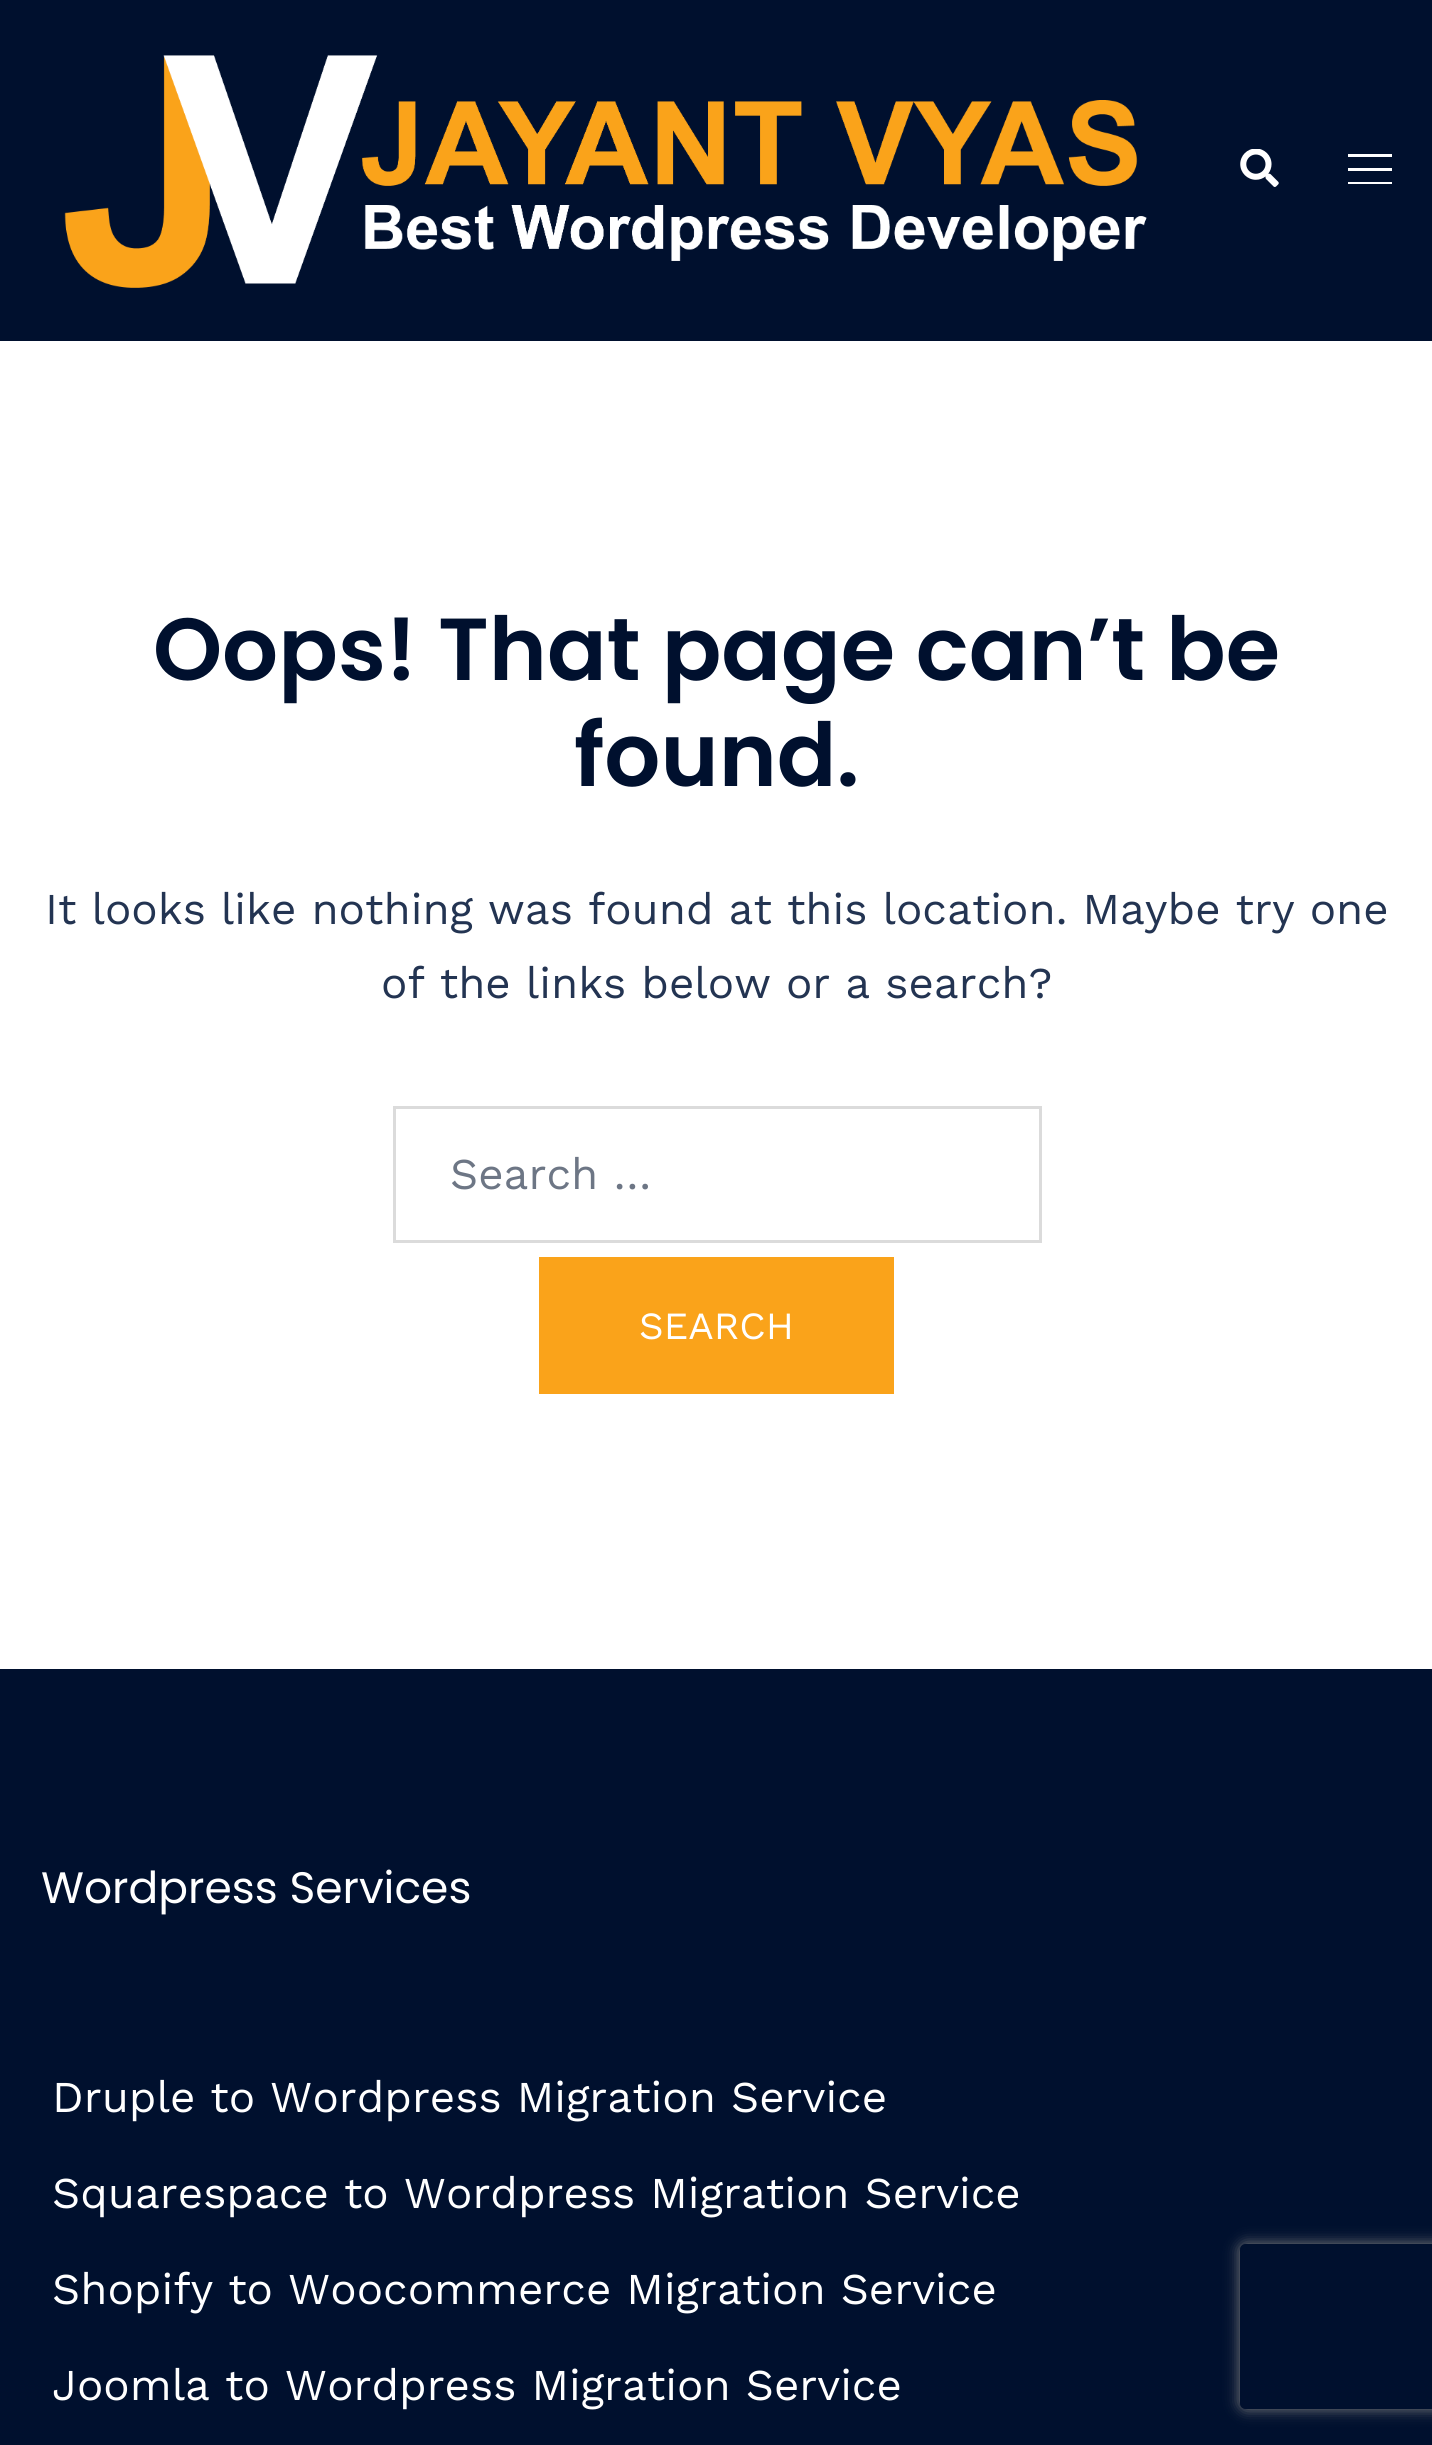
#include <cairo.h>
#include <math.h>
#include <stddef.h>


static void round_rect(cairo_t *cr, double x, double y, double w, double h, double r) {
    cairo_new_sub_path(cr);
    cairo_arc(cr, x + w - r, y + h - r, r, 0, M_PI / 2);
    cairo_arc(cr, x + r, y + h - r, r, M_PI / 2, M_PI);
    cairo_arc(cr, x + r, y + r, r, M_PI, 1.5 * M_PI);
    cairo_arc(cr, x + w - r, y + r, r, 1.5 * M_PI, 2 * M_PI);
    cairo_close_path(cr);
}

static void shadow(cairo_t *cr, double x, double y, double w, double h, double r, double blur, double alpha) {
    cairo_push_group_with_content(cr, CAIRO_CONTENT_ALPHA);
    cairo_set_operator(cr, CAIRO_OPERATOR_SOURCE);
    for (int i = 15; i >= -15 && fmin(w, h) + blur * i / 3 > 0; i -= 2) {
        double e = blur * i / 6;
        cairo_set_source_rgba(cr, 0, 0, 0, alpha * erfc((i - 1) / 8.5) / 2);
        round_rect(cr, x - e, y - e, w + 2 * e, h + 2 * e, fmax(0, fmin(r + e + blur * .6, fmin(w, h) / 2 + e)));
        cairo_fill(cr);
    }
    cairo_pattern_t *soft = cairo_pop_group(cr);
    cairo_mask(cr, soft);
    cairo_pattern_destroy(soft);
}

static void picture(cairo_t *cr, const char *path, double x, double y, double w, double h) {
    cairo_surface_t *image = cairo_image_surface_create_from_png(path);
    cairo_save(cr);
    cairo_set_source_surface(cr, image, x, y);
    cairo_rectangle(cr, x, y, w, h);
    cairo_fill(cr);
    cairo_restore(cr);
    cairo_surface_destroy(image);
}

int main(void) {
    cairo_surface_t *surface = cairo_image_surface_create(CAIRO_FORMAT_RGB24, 1432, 2445);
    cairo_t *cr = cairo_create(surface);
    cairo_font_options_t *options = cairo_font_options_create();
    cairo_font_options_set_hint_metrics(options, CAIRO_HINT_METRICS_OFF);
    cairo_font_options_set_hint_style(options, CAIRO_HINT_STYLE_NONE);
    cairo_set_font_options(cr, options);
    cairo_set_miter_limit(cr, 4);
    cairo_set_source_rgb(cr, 1, 1, 1);
    cairo_paint(cr);
    cairo_set_source_rgb(cr, 0, 0.063, 0.18);
    cairo_rectangle(cr, 0, 0, 1432, 341);
    cairo_fill(cr);
    picture(cr, "img1.png", 64, 55, 1083, 233);
    picture(cr, "img2.png", 1240, 149, 39, 38);
    cairo_set_source_rgb(cr, 1, 1, 1);
    cairo_rectangle(cr, 1348, 154, 44, 3);
    cairo_fill(cr);
    cairo_rectangle(cr, 1348, 168, 44, 3);
    cairo_fill(cr);
    cairo_rectangle(cr, 1348, 182, 44, 2);
    cairo_fill(cr);
    cairo_select_font_face(cr, "Poppins SemiBold", CAIRO_FONT_SLANT_NORMAL, CAIRO_FONT_WEIGHT_NORMAL);
    cairo_set_font_size(cr, 88);
    cairo_set_source_rgb(cr, 0, 0.063, 0.18);
    cairo_move_to(cr, 153, 680);
    cairo_show_text(cr, "Oops! That page can’t be");
    cairo_move_to(cr, 574, 786);
    cairo_show_text(cr, "found.");
    cairo_select_font_face(cr, "Work Sans", CAIRO_FONT_SLANT_NORMAL, CAIRO_FONT_WEIGHT_NORMAL);
    cairo_set_font_size(cr, 44);
    cairo_set_source_rgb(cr, 0.137, 0.204, 0.322);
    cairo_move_to(cr, 45, 924);
    cairo_show_text(cr, "It looks like nothing was found at this location. Maybe try one");
    cairo_move_to(cr, 381, 998);
    cairo_show_text(cr, "of the links below or a search?");
    cairo_rectangle(cr, 394.5, 1107.5, 646, 134);
    cairo_set_source_rgb(cr, 0.859, 0.859, 0.859);
    cairo_set_line_width(cr, 3);
    cairo_stroke(cr);
    cairo_set_source_rgb(cr, 0.427, 0.463, 0.522);
    cairo_move_to(cr, 450, 1189);
    cairo_show_text(cr, "Search …");
    cairo_set_source_rgb(cr, 0.98, 0.639, 0.102);
    cairo_rectangle(cr, 539, 1257, 355, 137);
    cairo_fill(cr);
    cairo_set_font_size(cr, 38.5);
    cairo_set_source_rgb(cr, 1, 1, 1);
    cairo_move_to(cr, 639, 1339);
    cairo_show_text(cr, "SEARCH");
    cairo_set_source_rgb(cr, 0, 0.063, 0.18);
    cairo_rectangle(cr, 0, 1669, 1432, 776);
    cairo_fill(cr);
    cairo_select_font_face(cr, "Poppins", CAIRO_FONT_SLANT_NORMAL, CAIRO_FONT_WEIGHT_NORMAL);
    cairo_set_font_size(cr, 44);
    cairo_set_source_rgb(cr, 1, 1, 1);
    cairo_move_to(cr, 41, 1903);
    cairo_show_text(cr, "Wordpress Services");
    cairo_select_font_face(cr, "Work Sans", CAIRO_FONT_SLANT_NORMAL, CAIRO_FONT_WEIGHT_NORMAL);
    cairo_move_to(cr, 52, 2112);
    cairo_show_text(cr, "Druple to Wordpress Migration Service");
    cairo_move_to(cr, 52, 2208);
    cairo_show_text(cr, "Squarespace to Wordpress Migration Service");
    cairo_move_to(cr, 52, 2304);
    cairo_show_text(cr, "Shopify to Woocommerce Migration Service");
    cairo_move_to(cr, 52, 2400);
    cairo_show_text(cr, "Joomla to Wordpress Migration Service");
    cairo_save(cr);
    cairo_set_fill_rule(cr, CAIRO_FILL_RULE_EVEN_ODD);
    cairo_new_path(cr);
    cairo_move_to(cr, 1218, 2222);
    cairo_line_to(cr, 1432, 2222);
    cairo_line_to(cr, 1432, 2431);
    cairo_line_to(cr, 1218, 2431);
    cairo_close_path(cr);
    cairo_move_to(cr, 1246, 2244);
    cairo_line_to(cr, 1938, 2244);
    cairo_curve_to(cr, 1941.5, 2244, 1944, 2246.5, 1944, 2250);
    cairo_line_to(cr, 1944, 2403);
    cairo_curve_to(cr, 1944, 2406.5, 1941.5, 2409, 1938, 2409);
    cairo_line_to(cr, 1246, 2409);
    cairo_curve_to(cr, 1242.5, 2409, 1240, 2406.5, 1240, 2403);
    cairo_line_to(cr, 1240, 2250);
    cairo_curve_to(cr, 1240, 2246.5, 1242.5, 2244, 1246, 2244);
    cairo_close_path(cr);
    cairo_clip(cr);
    cairo_set_source_rgb(cr, 0.502, 0.502, 0.502);
    shadow(cr, 1240, 2244, 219, 165, 6, 7, 1);
    cairo_restore(cr);
    cairo_surface_write_to_png(surface, "page.png");
    cairo_font_options_destroy(options);
    cairo_destroy(cr);
    cairo_surface_destroy(surface);
    return 0;
}
